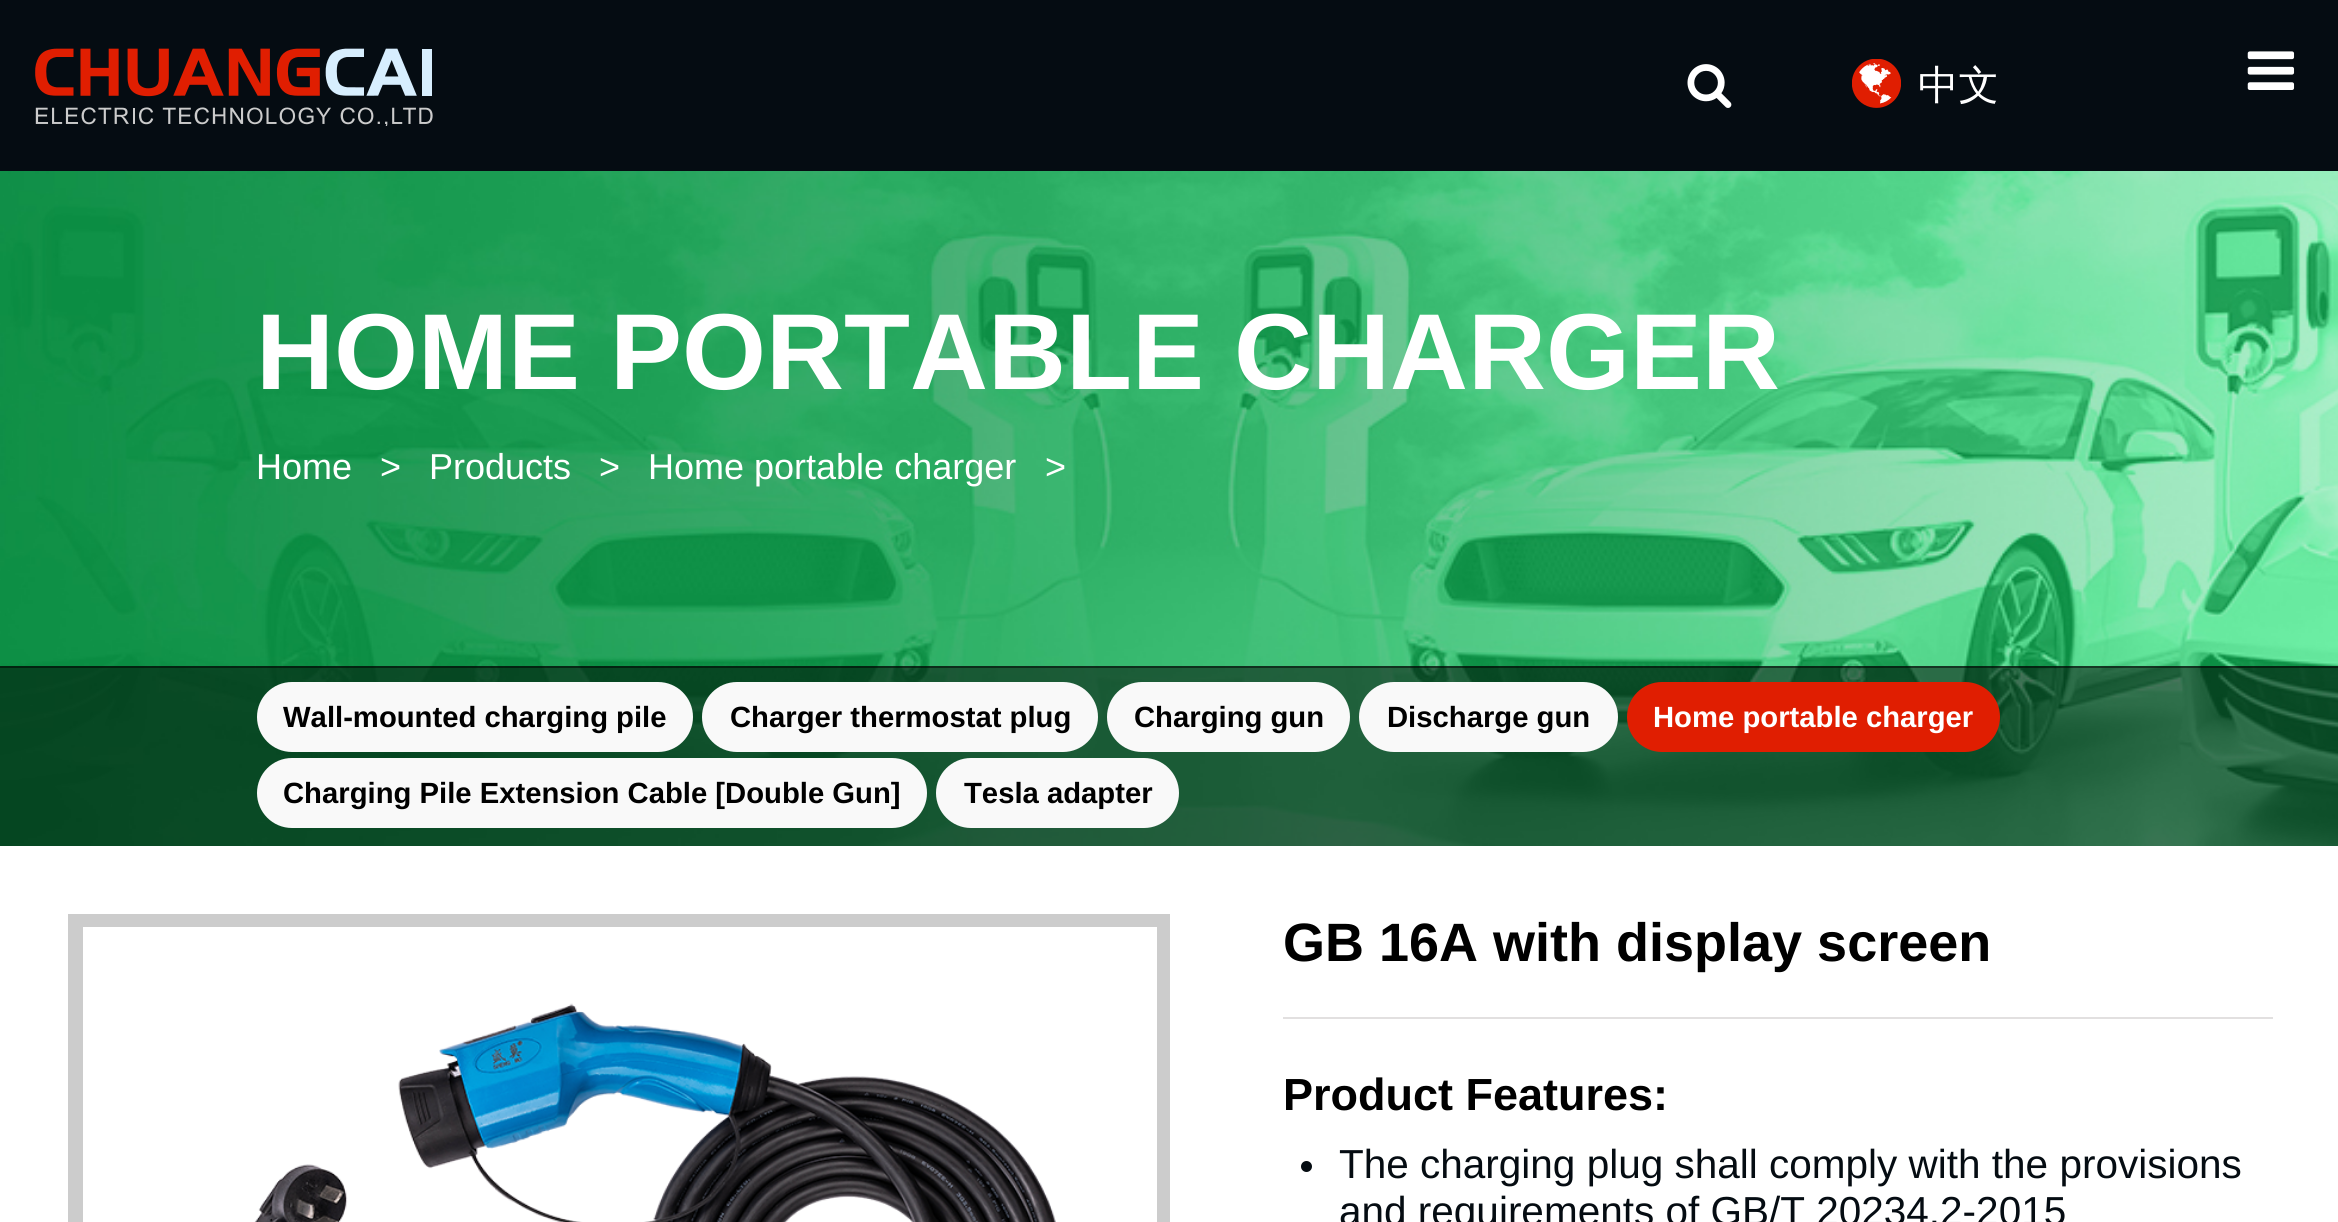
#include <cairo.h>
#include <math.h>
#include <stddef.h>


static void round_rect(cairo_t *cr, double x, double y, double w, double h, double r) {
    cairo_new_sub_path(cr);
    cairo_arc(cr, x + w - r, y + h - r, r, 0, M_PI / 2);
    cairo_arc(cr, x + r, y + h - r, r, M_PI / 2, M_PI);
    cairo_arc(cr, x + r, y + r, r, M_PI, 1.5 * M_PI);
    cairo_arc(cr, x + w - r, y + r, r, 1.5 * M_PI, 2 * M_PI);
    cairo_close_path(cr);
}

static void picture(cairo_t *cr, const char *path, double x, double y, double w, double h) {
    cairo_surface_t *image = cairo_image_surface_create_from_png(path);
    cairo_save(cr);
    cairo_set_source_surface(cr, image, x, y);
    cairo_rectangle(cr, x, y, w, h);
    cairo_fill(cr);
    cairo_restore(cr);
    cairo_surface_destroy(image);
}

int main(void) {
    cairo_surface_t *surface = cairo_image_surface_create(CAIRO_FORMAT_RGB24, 2338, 1222);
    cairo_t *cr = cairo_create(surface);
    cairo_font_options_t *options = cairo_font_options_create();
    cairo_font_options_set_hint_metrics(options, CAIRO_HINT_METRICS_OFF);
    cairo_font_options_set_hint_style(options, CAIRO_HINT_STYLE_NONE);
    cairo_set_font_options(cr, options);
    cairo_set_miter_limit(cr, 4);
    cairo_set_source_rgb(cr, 1, 1, 1);
    cairo_paint(cr);
    cairo_set_source_rgb(cr, 0.02, 0.047, 0.071);
    cairo_rectangle(cr, 0, 0, 2338, 171);
    cairo_fill(cr);
    picture(cr, "img1.png", 35, 48, 398, 78);
    picture(cr, "img2.png", 1687, 64, 45, 44);
    picture(cr, "img3.png", 1852, 59, 49, 49);
    cairo_select_font_face(cr, "WenQuanYi Zen Hei Medium", CAIRO_FONT_SLANT_NORMAL, CAIRO_FONT_WEIGHT_NORMAL);
    cairo_set_font_size(cr, 40.5);
    cairo_set_source_rgb(cr, 1, 1, 1);
    cairo_move_to(cr, 1918, 99);
    cairo_show_text(cr, "中文");
    picture(cr, "img4.png", 2247, 51, 48, 39);
    picture(cr, "img5.png", 0, 171, 2338, 675);
    cairo_select_font_face(cr, "Liberation Sans", CAIRO_FONT_SLANT_NORMAL, CAIRO_FONT_WEIGHT_BOLD);
    cairo_set_font_size(cr, 108);
    cairo_move_to(cr, 256, 389);
    cairo_show_text(cr, "HOME PORTABLE CHARGER");
    cairo_select_font_face(cr, "Liberation Sans", CAIRO_FONT_SLANT_NORMAL, CAIRO_FONT_WEIGHT_NORMAL);
    cairo_set_font_size(cr, 36);
    cairo_move_to(cr, 256, 479);
    cairo_show_text(cr, "Home");
    cairo_move_to(cr, 380, 479);
    cairo_show_text(cr, ">");
    cairo_move_to(cr, 429, 479);
    cairo_show_text(cr, "Products");
    cairo_move_to(cr, 599, 479);
    cairo_show_text(cr, ">");
    cairo_move_to(cr, 648, 479);
    cairo_show_text(cr, "Home portable charger");
    cairo_move_to(cr, 1045, 479);
    cairo_show_text(cr, ">");
    cairo_set_source_rgba(cr, 0, 0, 0, 0.5);
    cairo_rectangle(cr, 0, 666, 2338, 180);
    cairo_fill(cr);
    cairo_rectangle(cr, 0, 666, 2338, 2);
    cairo_fill(cr);
    cairo_set_source_rgb(cr, 0.976, 0.976, 0.976);
    round_rect(cr, 257, 682, 436, 70, 35);
    cairo_fill(cr);
    cairo_select_font_face(cr, "Liberation Sans", CAIRO_FONT_SLANT_NORMAL, CAIRO_FONT_WEIGHT_BOLD);
    cairo_set_font_size(cr, 29.25);
    cairo_set_source_rgb(cr, 0, 0, 0);
    cairo_move_to(cr, 283, 727);
    cairo_show_text(cr, "Wall-mounted charging pile");
    cairo_set_source_rgb(cr, 0.976, 0.976, 0.976);
    round_rect(cr, 702, 682, 396, 70, 35);
    cairo_fill(cr);
    cairo_set_source_rgb(cr, 0, 0, 0);
    cairo_move_to(cr, 730, 727);
    cairo_show_text(cr, "Charger thermostat plug");
    cairo_set_source_rgb(cr, 0.976, 0.976, 0.976);
    round_rect(cr, 1107, 682, 243, 70, 35);
    cairo_fill(cr);
    cairo_set_source_rgb(cr, 0, 0, 0);
    cairo_move_to(cr, 1134, 727);
    cairo_show_text(cr, "Charging gun");
    cairo_set_source_rgb(cr, 0.976, 0.976, 0.976);
    round_rect(cr, 1359, 682, 259, 70, 35);
    cairo_fill(cr);
    cairo_set_source_rgb(cr, 0, 0, 0);
    cairo_move_to(cr, 1387, 727);
    cairo_show_text(cr, "Discharge gun");
    cairo_set_source_rgb(cr, 0.878, 0.118, 0.004);
    round_rect(cr, 1627, 682, 373, 70, 35);
    cairo_fill(cr);
    cairo_set_source_rgb(cr, 1, 1, 1);
    cairo_move_to(cr, 1653, 727);
    cairo_show_text(cr, "Home portable charger");
    cairo_set_source_rgb(cr, 0.976, 0.976, 0.976);
    round_rect(cr, 257, 758, 670, 70, 35);
    cairo_fill(cr);
    cairo_set_source_rgb(cr, 0, 0, 0);
    cairo_move_to(cr, 283, 803);
    cairo_show_text(cr, "Charging Pile Extension Cable [Double Gun]");
    cairo_set_source_rgb(cr, 0.976, 0.976, 0.976);
    round_rect(cr, 936, 758, 243, 70, 35);
    cairo_fill(cr);
    cairo_set_source_rgb(cr, 0, 0, 0);
    cairo_move_to(cr, 964, 803);
    cairo_show_text(cr, "Tesla adapter");
    cairo_rectangle(cr, 69, 915, 1100, 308);
    cairo_set_source_rgb(cr, 0.8, 0.8, 0.8);
    cairo_stroke(cr);
    cairo_rectangle(cr, 70, 916, 1098, 306);
    cairo_fill(cr);
    cairo_set_source_rgb(cr, 1, 1, 1);
    cairo_rectangle(cr, 83, 927, 1074, 295);
    cairo_fill(cr);
    picture(cr, "img6.png", 254, 1003, 802, 219);
    cairo_set_source_rgb(cr, 0.886, 0.878, 0.878);
    cairo_rectangle(cr, 1283, 1017, 990, 2);
    cairo_fill(cr);
    cairo_set_font_size(cr, 54);
    cairo_set_source_rgb(cr, 0, 0, 0);
    cairo_move_to(cr, 1283, 961);
    cairo_show_text(cr, "GB 16A with display screen");
    cairo_set_font_size(cr, 45);
    cairo_move_to(cr, 1283, 1110);
    cairo_show_text(cr, "Product Features:");
    cairo_set_source_rgb(cr, 0.02, 0.047, 0.071);
    cairo_new_path(cr);
    cairo_arc(cr, 1306.5, 1166.5, 5.5, 0, 2 * M_PI);
    cairo_fill(cr);
    cairo_select_font_face(cr, "Liberation Sans", CAIRO_FONT_SLANT_NORMAL, CAIRO_FONT_WEIGHT_NORMAL);
    cairo_set_font_size(cr, 40.5);
    cairo_move_to(cr, 1339, 1178);
    cairo_show_text(cr, "The charging plug shall comply with the provisions");
    cairo_move_to(cr, 1339, 1225);
    cairo_show_text(cr, "and requirements of GB/T 20234.2-2015");
    cairo_surface_write_to_png(surface, "page.png");
    cairo_font_options_destroy(options);
    cairo_destroy(cr);
    cairo_surface_destroy(surface);
    return 0;
}
